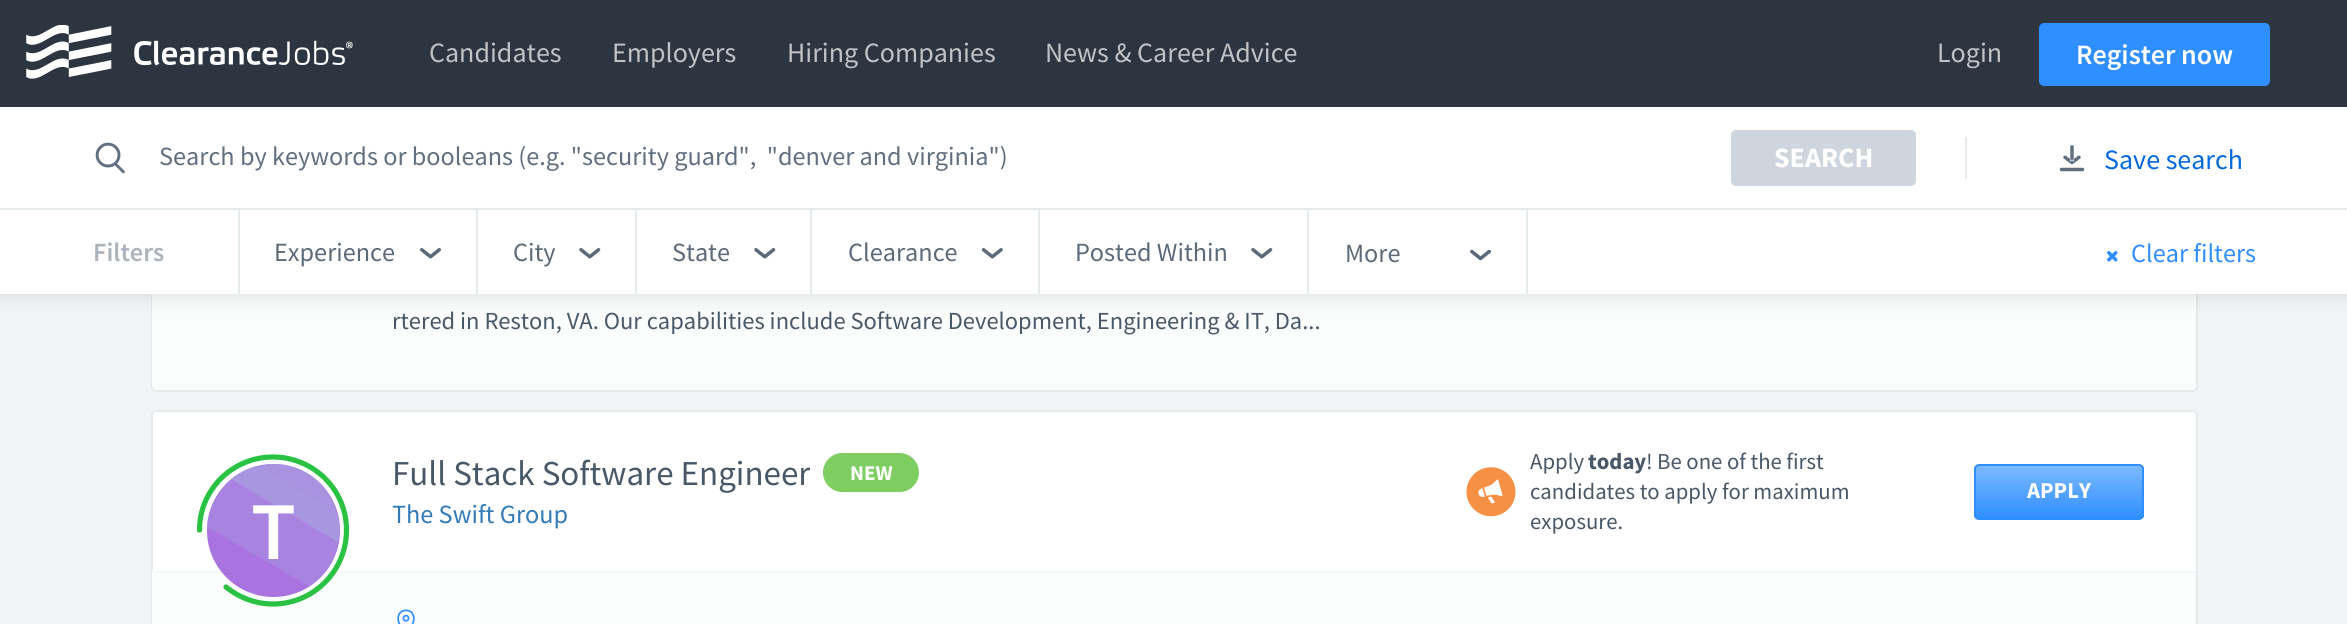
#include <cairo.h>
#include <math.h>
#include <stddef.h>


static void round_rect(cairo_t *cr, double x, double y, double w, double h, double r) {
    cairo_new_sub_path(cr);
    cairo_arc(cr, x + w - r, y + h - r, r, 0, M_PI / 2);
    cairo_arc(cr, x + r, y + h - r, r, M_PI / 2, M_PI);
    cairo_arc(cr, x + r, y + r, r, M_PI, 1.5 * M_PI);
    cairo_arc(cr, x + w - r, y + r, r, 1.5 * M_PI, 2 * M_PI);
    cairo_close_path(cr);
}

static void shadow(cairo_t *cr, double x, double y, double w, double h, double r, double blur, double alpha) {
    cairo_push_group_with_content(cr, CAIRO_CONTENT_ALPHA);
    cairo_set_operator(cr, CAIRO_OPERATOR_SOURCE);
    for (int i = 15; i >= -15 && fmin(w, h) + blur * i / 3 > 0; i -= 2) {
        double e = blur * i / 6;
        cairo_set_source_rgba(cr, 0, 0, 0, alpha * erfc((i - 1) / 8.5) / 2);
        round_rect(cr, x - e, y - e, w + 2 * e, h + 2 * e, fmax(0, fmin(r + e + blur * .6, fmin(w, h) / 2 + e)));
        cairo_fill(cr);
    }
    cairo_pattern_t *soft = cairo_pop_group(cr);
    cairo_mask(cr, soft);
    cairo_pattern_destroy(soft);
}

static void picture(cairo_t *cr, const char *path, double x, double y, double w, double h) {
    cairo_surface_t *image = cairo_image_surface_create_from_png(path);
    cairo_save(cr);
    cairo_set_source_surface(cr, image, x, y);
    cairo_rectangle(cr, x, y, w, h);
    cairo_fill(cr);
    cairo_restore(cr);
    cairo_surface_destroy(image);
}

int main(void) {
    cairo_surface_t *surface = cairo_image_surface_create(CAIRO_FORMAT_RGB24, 2347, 624);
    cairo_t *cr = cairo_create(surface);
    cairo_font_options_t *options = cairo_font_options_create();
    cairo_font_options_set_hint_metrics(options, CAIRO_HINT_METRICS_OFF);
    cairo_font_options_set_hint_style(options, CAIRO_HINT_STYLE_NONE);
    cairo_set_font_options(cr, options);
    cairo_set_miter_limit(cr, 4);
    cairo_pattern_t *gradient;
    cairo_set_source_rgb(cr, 0.949, 0.957, 0.961);
    cairo_paint(cr);
    cairo_set_source_rgb(cr, 1, 1, 1);
    round_rect(cr, 152, -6, 2045, 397, 4);
    cairo_fill_preserve(cr);
    cairo_set_source_rgb(cr, 0.898, 0.918, 0.925);
    cairo_stroke(cr);
    cairo_set_source_rgb(cr, 0.176, 0.208, 0.255);
    cairo_rectangle(cr, 0, 0, 2347, 107);
    cairo_fill(cr);
    picture(cr, "img1.png", 26, 25, 327, 54);
    cairo_select_font_face(cr, "Source Sans Pro", CAIRO_FONT_SLANT_NORMAL, CAIRO_FONT_WEIGHT_NORMAL);
    cairo_set_font_size(cr, 28);
    cairo_set_source_rgb(cr, 0.753, 0.761, 0.776);
    cairo_move_to(cr, 429, 62);
    cairo_show_text(cr, "Candidates");
    cairo_move_to(cr, 612, 62);
    cairo_show_text(cr, "Employers");
    cairo_move_to(cr, 787, 62);
    cairo_show_text(cr, "Hiring Companies");
    cairo_move_to(cr, 1045, 62);
    cairo_show_text(cr, "News & Career Advice");
    cairo_move_to(cr, 1937, 62);
    cairo_show_text(cr, "Login");
    cairo_set_source_rgb(cr, 0.184, 0.561, 1);
    round_rect(cr, 2040, 24, 229, 61, 4);
    cairo_fill_preserve(cr);
    cairo_stroke(cr);
    cairo_select_font_face(cr, "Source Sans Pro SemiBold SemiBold", CAIRO_FONT_SLANT_NORMAL, CAIRO_FONT_WEIGHT_NORMAL);
    cairo_set_source_rgb(cr, 1, 1, 1);
    cairo_move_to(cr, 2076, 64);
    cairo_show_text(cr, "Register now");
    cairo_set_source_rgb(cr, 0.984, 0.988, 0.988);
    cairo_new_path(cr);
    cairo_move_to(cr, 152, 116);
    cairo_line_to(cr, 2196, 116);
    cairo_line_to(cr, 2196, 385);
    cairo_curve_to(cr, 2196, 388, 2194, 390, 2191, 390);
    cairo_line_to(cr, 157, 390);
    cairo_curve_to(cr, 154, 390, 152, 388, 152, 385);
    cairo_close_path(cr);
    cairo_fill(cr);
    cairo_set_source_rgb(cr, 0, 0, 0);
    shadow(cr, 0, 214, 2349, 84, 0, 9, 0.1);
    cairo_set_source_rgb(cr, 1, 1, 1);
    cairo_rectangle(cr, 0, 107, 2347, 101);
    cairo_fill(cr);
    cairo_set_source_rgb(cr, 0.898, 0.918, 0.925);
    cairo_rectangle(cr, 0, 208, 2347, 2);
    cairo_fill(cr);
    picture(cr, "img2.png", 95, 142, 30, 32);
    cairo_select_font_face(cr, "Source Sans Pro", CAIRO_FONT_SLANT_NORMAL, CAIRO_FONT_WEIGHT_NORMAL);
    cairo_set_font_size(cr, 26.25);
    cairo_set_source_rgb(cr, 0.38, 0.435, 0.498);
    cairo_move_to(cr, 159, 165);
    cairo_show_text(cr, "Search by keywords or booleans (e.g. \"security guard\",  \"denver and virginia\")");
    cairo_set_source_rgb(cr, 0.808, 0.835, 0.867);
    round_rect(cr, 1731, 130, 185, 56, 5);
    cairo_fill(cr);
    cairo_select_font_face(cr, "Source Sans Pro", CAIRO_FONT_SLANT_NORMAL, CAIRO_FONT_WEIGHT_BOLD);
    cairo_set_font_size(cr, 28);
    cairo_set_source_rgb(cr, 1, 1, 1);
    cairo_move_to(cr, 1774, 167);
    cairo_show_text(cr, "SEARCH");
    cairo_set_source_rgb(cr, 0.898, 0.918, 0.925);
    cairo_rectangle(cr, 1965, 137, 2, 42);
    cairo_fill(cr);
    picture(cr, "img3.png", 2059, 145, 26, 27);
    cairo_select_font_face(cr, "Source Sans Pro", CAIRO_FONT_SLANT_NORMAL, CAIRO_FONT_WEIGHT_NORMAL);
    cairo_set_source_rgb(cr, 0.012, 0.412, 0.867);
    cairo_move_to(cr, 2104, 169);
    cairo_show_text(cr, "Save search");
    cairo_set_source_rgb(cr, 1, 1, 1);
    cairo_rectangle(cr, 0, 210, 2347, 84);
    cairo_fill(cr);
    cairo_set_source_rgb(cr, 0.898, 0.918, 0.925);
    cairo_rectangle(cr, 238, 210, 2, 84);
    cairo_fill(cr);
    cairo_select_font_face(cr, "Source Sans Pro SemiBold SemiBold", CAIRO_FONT_SLANT_NORMAL, CAIRO_FONT_WEIGHT_NORMAL);
    cairo_set_font_size(cr, 26.25);
    cairo_set_source_rgb(cr, 0.675, 0.702, 0.733);
    cairo_move_to(cr, 93, 261);
    cairo_show_text(cr, "Filters");
    cairo_set_source_rgb(cr, 0.898, 0.918, 0.925);
    cairo_rectangle(cr, 476, 210, 2, 84);
    cairo_fill(cr);
    cairo_select_font_face(cr, "Source Sans Pro", CAIRO_FONT_SLANT_NORMAL, CAIRO_FONT_WEIGHT_NORMAL);
    cairo_set_source_rgb(cr, 0.361, 0.416, 0.471);
    cairo_move_to(cr, 274, 261);
    cairo_show_text(cr, "Experience");
    picture(cr, "img4.png", 420, 248, 21, 11);
    cairo_set_source_rgb(cr, 0.898, 0.918, 0.925);
    cairo_rectangle(cr, 635, 210, 2, 84);
    cairo_fill(cr);
    cairo_set_source_rgb(cr, 0.361, 0.416, 0.471);
    cairo_move_to(cr, 513, 261);
    cairo_show_text(cr, "City");
    picture(cr, "img5.png", 579, 248, 22, 11);
    cairo_set_source_rgb(cr, 0.898, 0.918, 0.925);
    cairo_rectangle(cr, 810, 210, 2, 84);
    cairo_fill(cr);
    cairo_set_source_rgb(cr, 0.361, 0.416, 0.471);
    cairo_move_to(cr, 672, 261);
    cairo_show_text(cr, "State");
    picture(cr, "img5.png", 754, 248, 22, 11);
    cairo_set_source_rgb(cr, 0.898, 0.918, 0.925);
    cairo_rectangle(cr, 1038, 210, 2, 84);
    cairo_fill(cr);
    cairo_set_source_rgb(cr, 0.361, 0.416, 0.471);
    cairo_move_to(cr, 848, 261);
    cairo_show_text(cr, "Clearance");
    picture(cr, "img6.png", 981, 248, 22, 11);
    cairo_set_source_rgb(cr, 0.898, 0.918, 0.925);
    cairo_rectangle(cr, 1307, 210, 2, 84);
    cairo_fill(cr);
    cairo_set_source_rgb(cr, 0.361, 0.416, 0.471);
    cairo_move_to(cr, 1075, 261);
    cairo_show_text(cr, "Posted Within");
    picture(cr, "img5.png", 1251, 248, 22, 11);
    cairo_set_source_rgb(cr, 0.898, 0.918, 0.925);
    cairo_rectangle(cr, 1526, 210, 2, 84);
    cairo_fill(cr);
    cairo_set_source_rgb(cr, 0.361, 0.416, 0.471);
    cairo_move_to(cr, 1345, 262);
    cairo_show_text(cr, "More");
    picture(cr, "img7.png", 1470, 249, 21, 12);
    picture(cr, "img8.png", 2107, 251, 11, 11);
    cairo_set_source_rgb(cr, 0.184, 0.561, 1);
    cairo_move_to(cr, 2131, 262);
    cairo_show_text(cr, "Clear filters");
    cairo_set_font_size(cr, 24.5);
    cairo_set_source_rgb(cr, 0.286, 0.345, 0.404);
    cairo_move_to(cr, 392, 329);
    cairo_show_text(cr, "rtered in Reston, VA. Our capabilities include Software Development, Engineering & IT, Da...");
    cairo_set_source_rgb(cr, 1, 1, 1);
    round_rect(cr, 152, 411, 2045, 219, 4);
    cairo_fill_preserve(cr);
    cairo_set_source_rgb(cr, 0.898, 0.918, 0.925);
    cairo_stroke(cr);
    cairo_set_source_rgb(cr, 0.984, 0.988, 0.988);
    cairo_rectangle(cr, 152, 573, 2044, 51);
    cairo_fill(cr);
    cairo_set_source_rgb(cr, 0.953, 0.965, 0.973);
    cairo_rectangle(cr, 152, 571, 2044, 2);
    cairo_fill(cr);
    cairo_set_source_rgb(cr, 0.663, 0.455, 0.878);
    cairo_arc(cr, 273.5, 530.5, 66.5, 0, 2 * M_PI);
    cairo_fill(cr);
    cairo_new_path(cr);
    cairo_move_to(cr, 199.5, 530);
    cairo_curve_to(cr, 199.5, 489.5, 232.5, 457, 273, 457);
    cairo_curve_to(cr, 313.5, 457, 346.5, 489.5, 346.5, 530);
    cairo_curve_to(cr, 346.5, 571, 313.5, 604, 273, 604);
    cairo_curve_to(cr, 255, 604, 239, 597.5, 226, 587);
    cairo_set_source_rgb(cr, 0.161, 0.761, 0.259);
    cairo_set_line_width(cr, 5.2);
    cairo_set_line_cap(cr, CAIRO_LINE_CAP_ROUND);
    cairo_stroke(cr);
    cairo_set_source_rgba(cr, 0.663, 0.533, 0.878, 0.75);
    cairo_new_path(cr);
    cairo_move_to(cr, 330, 565);
    cairo_curve_to(cr, 324, 574, 317, 581, 309, 586);
    cairo_line_to(cr, 207, 527);
    cairo_curve_to(cr, 209, 498, 229, 473, 257, 466);
    cairo_line_to(cr, 337, 512);
    cairo_curve_to(cr, 342, 530, 339, 549, 330, 565);
    cairo_close_path(cr);
    cairo_fill(cr);
    cairo_set_source_rgba(cr, 0.663, 0.612, 0.878, 0.75);
    cairo_new_path(cr);
    cairo_move_to(cr, 274, 464);
    cairo_curve_to(cr, 314, 464, 346, 501, 338, 542);
    cairo_line_to(cr, 231, 479);
    cairo_curve_to(cr, 243, 470, 257, 464, 274, 464);
    cairo_close_path(cr);
    cairo_fill(cr);
    cairo_select_font_face(cr, "Source Sans Pro SemiBold SemiBold", CAIRO_FONT_SLANT_NORMAL, CAIRO_FONT_WEIGHT_NORMAL);
    cairo_set_font_size(cr, 82);
    cairo_set_source_rgb(cr, 1, 1, 1);
    cairo_move_to(cr, 251, 559);
    cairo_show_text(cr, "T");
    cairo_save(cr);
    cairo_rectangle(cr, 392, 452, 418, 42);
    cairo_clip(cr);
    cairo_select_font_face(cr, "Source Sans Pro", CAIRO_FONT_SLANT_NORMAL, CAIRO_FONT_WEIGHT_NORMAL);
    cairo_set_font_size(cr, 35);
    cairo_set_source_rgb(cr, 0.286, 0.345, 0.404);
    cairo_move_to(cr, 392, 485);
    cairo_show_text(cr, "Full Stack Software Engineer");
    cairo_restore(cr);
    cairo_set_source_rgb(cr, 0.498, 0.808, 0.384);
    round_rect(cr, 823, 453, 96, 39, 19.5);
    cairo_fill(cr);
    cairo_select_font_face(cr, "Source Sans Pro", CAIRO_FONT_SLANT_NORMAL, CAIRO_FONT_WEIGHT_BOLD);
    cairo_set_font_size(cr, 21);
    cairo_set_source_rgb(cr, 1, 1, 1);
    cairo_move_to(cr, 850, 480);
    cairo_show_text(cr, "NEW");
    cairo_select_font_face(cr, "Source Sans Pro", CAIRO_FONT_SLANT_NORMAL, CAIRO_FONT_WEIGHT_NORMAL);
    cairo_set_font_size(cr, 26.25);
    cairo_set_source_rgb(cr, 0.2, 0.478, 0.718);
    cairo_move_to(cr, 392, 523);
    cairo_show_text(cr, "The Swift Group");
    picture(cr, "img9.png", 1466, 467, 50, 50);
    cairo_set_font_size(cr, 22.75);
    cairo_set_source_rgb(cr, 0.286, 0.345, 0.404);
    cairo_move_to(cr, 1530, 469);
    cairo_show_text(cr, "Apply");
    cairo_select_font_face(cr, "Source Sans Pro", CAIRO_FONT_SLANT_NORMAL, CAIRO_FONT_WEIGHT_BOLD);
    cairo_move_to(cr, 1588, 469);
    cairo_show_text(cr, "today");
    cairo_select_font_face(cr, "Source Sans Pro", CAIRO_FONT_SLANT_NORMAL, CAIRO_FONT_WEIGHT_NORMAL);
    cairo_move_to(cr, 1646, 469);
    cairo_show_text(cr, "! Be one of the first");
    cairo_move_to(cr, 1530, 499);
    cairo_show_text(cr, "candidates to apply for maximum");
    cairo_move_to(cr, 1530, 529);
    cairo_show_text(cr, "exposure.");
    cairo_save(cr);
    round_rect(cr, 1974, 464, 170, 56, 5);
    cairo_clip(cr);
    gradient = cairo_pattern_create_linear(2059, 518, 2059, 466);
    cairo_pattern_add_color_stop_rgba(gradient, 0, 0.188, 0.561, 1, 1);
    cairo_pattern_add_color_stop_rgba(gradient, 1, 0.482, 0.725, 1, 1);
    cairo_set_source(cr, gradient);
    cairo_pattern_destroy(gradient);
    cairo_rectangle(cr, 1974, 466, 170, 52);
    cairo_fill(cr);
    cairo_restore(cr);
    round_rect(cr, 1975, 465, 168, 54, 4);
    cairo_set_source_rgb(cr, 0.184, 0.561, 1);
    cairo_set_line_width(cr, 2);
    cairo_set_line_cap(cr, CAIRO_LINE_CAP_BUTT);
    cairo_stroke(cr);
    cairo_select_font_face(cr, "Source Sans Pro", CAIRO_FONT_SLANT_NORMAL, CAIRO_FONT_WEIGHT_BOLD);
    cairo_set_source_rgb(cr, 1, 1, 1);
    cairo_move_to(cr, 2027, 498);
    cairo_show_text(cr, "APPLY");
    picture(cr, "img10.png", 397, 609, 18, 15);
    cairo_surface_write_to_png(surface, "page.png");
    cairo_font_options_destroy(options);
    cairo_destroy(cr);
    cairo_surface_destroy(surface);
    return 0;
}
